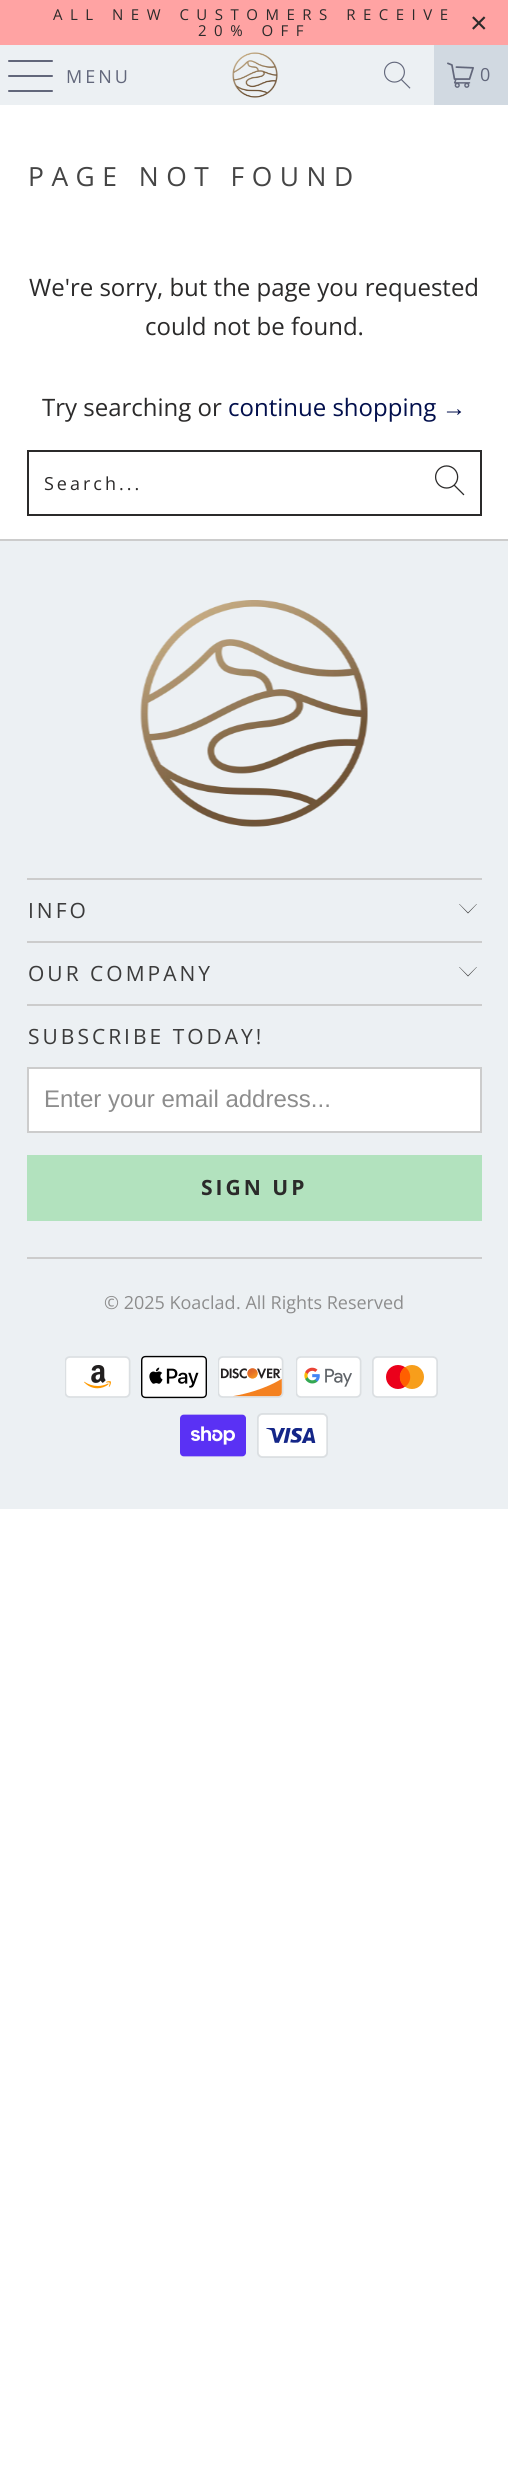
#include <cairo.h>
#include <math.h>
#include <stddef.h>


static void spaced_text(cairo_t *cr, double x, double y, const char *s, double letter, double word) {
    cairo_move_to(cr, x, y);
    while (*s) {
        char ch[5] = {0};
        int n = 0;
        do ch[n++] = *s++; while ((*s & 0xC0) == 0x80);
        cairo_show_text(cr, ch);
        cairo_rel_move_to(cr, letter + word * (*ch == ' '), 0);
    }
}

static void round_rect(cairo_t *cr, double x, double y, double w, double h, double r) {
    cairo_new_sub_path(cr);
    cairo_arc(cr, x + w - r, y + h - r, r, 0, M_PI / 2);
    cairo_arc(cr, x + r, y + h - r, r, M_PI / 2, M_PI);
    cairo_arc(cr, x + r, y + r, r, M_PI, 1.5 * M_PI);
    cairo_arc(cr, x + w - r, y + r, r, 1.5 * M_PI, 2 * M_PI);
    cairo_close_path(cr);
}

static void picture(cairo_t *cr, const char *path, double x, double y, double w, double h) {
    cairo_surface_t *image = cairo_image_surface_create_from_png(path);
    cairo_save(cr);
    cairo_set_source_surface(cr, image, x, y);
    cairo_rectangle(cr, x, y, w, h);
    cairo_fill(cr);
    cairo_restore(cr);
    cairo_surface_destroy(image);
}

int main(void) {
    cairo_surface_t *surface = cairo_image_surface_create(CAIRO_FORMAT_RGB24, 508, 2492);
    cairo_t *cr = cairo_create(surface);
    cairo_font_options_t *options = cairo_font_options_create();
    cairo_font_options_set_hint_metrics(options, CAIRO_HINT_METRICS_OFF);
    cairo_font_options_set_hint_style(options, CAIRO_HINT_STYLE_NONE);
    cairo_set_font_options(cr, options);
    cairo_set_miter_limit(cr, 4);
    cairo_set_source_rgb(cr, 1, 1, 1);
    cairo_paint(cr);
    cairo_set_source_rgb(cr, 1, 0.639, 0.639);
    cairo_rectangle(cr, 0, 0, 508, 45);
    cairo_fill(cr);
    cairo_select_font_face(cr, "Open Sans", CAIRO_FONT_SLANT_NORMAL, CAIRO_FONT_WEIGHT_NORMAL);
    cairo_set_font_size(cr, 15);
    cairo_set_source_rgb(cr, 0.169, 0.165, 0.165);
    spaced_text(cr, 53, 20, "ALL NEW CUSTOMERS RECEIVE", 7.5, 0);
    spaced_text(cr, 198, 36, "20% OFF", 7.5, 0);
    cairo_select_font_face(cr, "Liberation Sans", CAIRO_FONT_SLANT_NORMAL, CAIRO_FONT_WEIGHT_NORMAL);
    cairo_set_font_size(cr, 30);
    spaced_text(cr, 470, 33, "×", 7.5, 0);
    cairo_set_source_rgb(cr, 0.925, 0.941, 0.953);
    cairo_rectangle(cr, 0, 45, 434, 60);
    cairo_fill(cr);
    cairo_set_source_rgb(cr, 0.384, 0.404, 0.482);
    round_rect(cr, 8, 60, 45, 2, 1);
    cairo_fill(cr);
    round_rect(cr, 8, 75, 45, 2, 1);
    cairo_fill(cr);
    round_rect(cr, 8, 90, 45, 2, 1);
    cairo_fill(cr);
    cairo_select_font_face(cr, "Open Sans", CAIRO_FONT_SLANT_NORMAL, CAIRO_FONT_WEIGHT_NORMAL);
    cairo_set_font_size(cr, 18);
    spaced_text(cr, 66, 83, "MENU", 3, 0);
    picture(cr, "img1.png", 232, 52, 46, 46);
    picture(cr, "img2.png", 384, 61, 27, 28);
    cairo_set_source_rgb(cr, 0.82, 0.851, 0.882);
    cairo_rectangle(cr, 434, 45, 74, 60);
    cairo_fill(cr);
    picture(cr, "img3.png", 447, 62, 27, 26);
    cairo_set_source_rgb(cr, 0.384, 0.404, 0.482);
    spaced_text(cr, 480, 81, "0", 2, 0);
    cairo_set_font_size(cr, 26.4);
    cairo_set_source_rgb(cr, 0.271, 0.271, 0.271);
    spaced_text(cr, 28, 186, "PAGE NOT FOUND", 7.5, 0);
    cairo_set_font_size(cr, 24);
    cairo_set_source_rgb(cr, 0.169, 0.165, 0.165);
    cairo_move_to(cr, 29, 296);
    cairo_show_text(cr, "We're sorry, but the page you requested");
    cairo_move_to(cr, 145, 335);
    cairo_show_text(cr, "could not be found.");
    cairo_move_to(cr, 42, 416);
    cairo_show_text(cr, "Try searching or");
    cairo_set_source_rgb(cr, 0.008, 0.059, 0.298);
    cairo_move_to(cr, 228, 416);
    cairo_show_text(cr, "continue shopping");
    cairo_select_font_face(cr, "Liberation Sans", CAIRO_FONT_SLANT_NORMAL, CAIRO_FONT_WEIGHT_NORMAL);
    cairo_move_to(cr, 442, 416);
    cairo_show_text(cr, "→");
    cairo_rectangle(cr, 28, 451, 453, 64);
    cairo_set_source_rgb(cr, 0.169, 0.165, 0.165);
    cairo_stroke(cr);
    cairo_select_font_face(cr, "Open Sans", CAIRO_FONT_SLANT_NORMAL, CAIRO_FONT_WEIGHT_NORMAL);
    cairo_set_font_size(cr, 18);
    spaced_text(cr, 44, 490, "Search...", 3, 0);
    picture(cr, "img4.png", 435, 465, 30, 31);
    cairo_set_source_rgb(cr, 0.925, 0.941, 0.953);
    cairo_rectangle(cr, 0, 541, 508, 968);
    cairo_fill(cr);
    cairo_set_source_rgb(cr, 0.8, 0.8, 0.8);
    cairo_rectangle(cr, 0, 539, 508, 2);
    cairo_fill(cr);
    picture(cr, "img5.png", 140, 600, 228, 227);
    cairo_rectangle(cr, 27, 878, 455, 2);
    cairo_fill(cr);
    cairo_set_font_size(cr, 21);
    cairo_set_source_rgb(cr, 0.231, 0.231, 0.231);
    spaced_text(cr, 28, 918, "INFO", 3, 0);
    cairo_new_path(cr);
    cairo_move_to(cr, 468, 913.5);
    cairo_line_to(cr, 459, 904);
    cairo_line_to(cr, 459.5, 904);
    cairo_line_to(cr, 468, 912.5);
    cairo_line_to(cr, 476.5, 904);
    cairo_line_to(cr, 477, 904);
    cairo_close_path(cr);
    cairo_fill(cr);
    cairo_set_source_rgb(cr, 0.8, 0.8, 0.8);
    cairo_rectangle(cr, 27, 941, 455, 2);
    cairo_fill(cr);
    cairo_set_source_rgb(cr, 0.231, 0.231, 0.231);
    spaced_text(cr, 28, 981, "OUR COMPANY", 3, 0);
    cairo_new_path(cr);
    cairo_move_to(cr, 468, 976.5);
    cairo_line_to(cr, 459, 967);
    cairo_line_to(cr, 459.5, 967);
    cairo_line_to(cr, 468, 975.5);
    cairo_line_to(cr, 476.5, 967);
    cairo_line_to(cr, 477, 967);
    cairo_close_path(cr);
    cairo_fill(cr);
    cairo_set_source_rgb(cr, 0.8, 0.8, 0.8);
    cairo_rectangle(cr, 27, 1004, 455, 2);
    cairo_fill(cr);
    cairo_set_source_rgb(cr, 0.231, 0.231, 0.231);
    spaced_text(cr, 28, 1044, "SUBSCRIBE TODAY!", 3, 0);
    cairo_set_source_rgb(cr, 1, 1, 1);
    cairo_rectangle(cr, 28, 1068, 453, 64);
    cairo_fill_preserve(cr);
    cairo_set_source_rgb(cr, 0.8, 0.8, 0.8);
    cairo_stroke(cr);
    cairo_select_font_face(cr, "Liberation Sans", CAIRO_FONT_SLANT_NORMAL, CAIRO_FONT_WEIGHT_NORMAL);
    cairo_set_font_size(cr, 24);
    cairo_set_source_rgb(cr, 0.553, 0.553, 0.553);
    cairo_move_to(cr, 44, 1107);
    cairo_show_text(cr, "Enter your email address...");
    cairo_set_source_rgb(cr, 0.698, 0.886, 0.745);
    cairo_rectangle(cr, 27, 1155, 455, 66);
    cairo_fill(cr);
    cairo_select_font_face(cr, "Open Sans", CAIRO_FONT_SLANT_NORMAL, CAIRO_FONT_WEIGHT_BOLD);
    cairo_set_font_size(cr, 21);
    cairo_set_source_rgb(cr, 0.169, 0.165, 0.165);
    spaced_text(cr, 201, 1195, "SIGN UP", 3, 0);
    cairo_set_source_rgb(cr, 0.8, 0.8, 0.8);
    cairo_rectangle(cr, 27, 1257, 455, 2);
    cairo_fill(cr);
    cairo_select_font_face(cr, "Open Sans", CAIRO_FONT_SLANT_NORMAL, CAIRO_FONT_WEIGHT_NORMAL);
    cairo_set_font_size(cr, 18);
    cairo_set_source_rgb(cr, 0.553, 0.553, 0.553);
    cairo_move_to(cr, 104, 1309);
    cairo_show_text(cr, "© 2025 Koaclad");
    cairo_move_to(cr, 236, 1309);
    cairo_show_text(cr, ". All Rights Reserved");
    picture(cr, "img6.png", 65, 1356, 66, 42);
    picture(cr, "img7.png", 141, 1355, 66, 44);
    picture(cr, "img8.png", 218, 1356, 66, 42);
    picture(cr, "img9.png", 296, 1356, 66, 42);
    picture(cr, "img10.png", 372, 1356, 66, 42);
    picture(cr, "img11.png", 180, 1414, 66, 43);
    picture(cr, "img12.png", 257, 1413, 71, 45);
    cairo_surface_write_to_png(surface, "page.png");
    cairo_font_options_destroy(options);
    cairo_destroy(cr);
    cairo_surface_destroy(surface);
    return 0;
}
